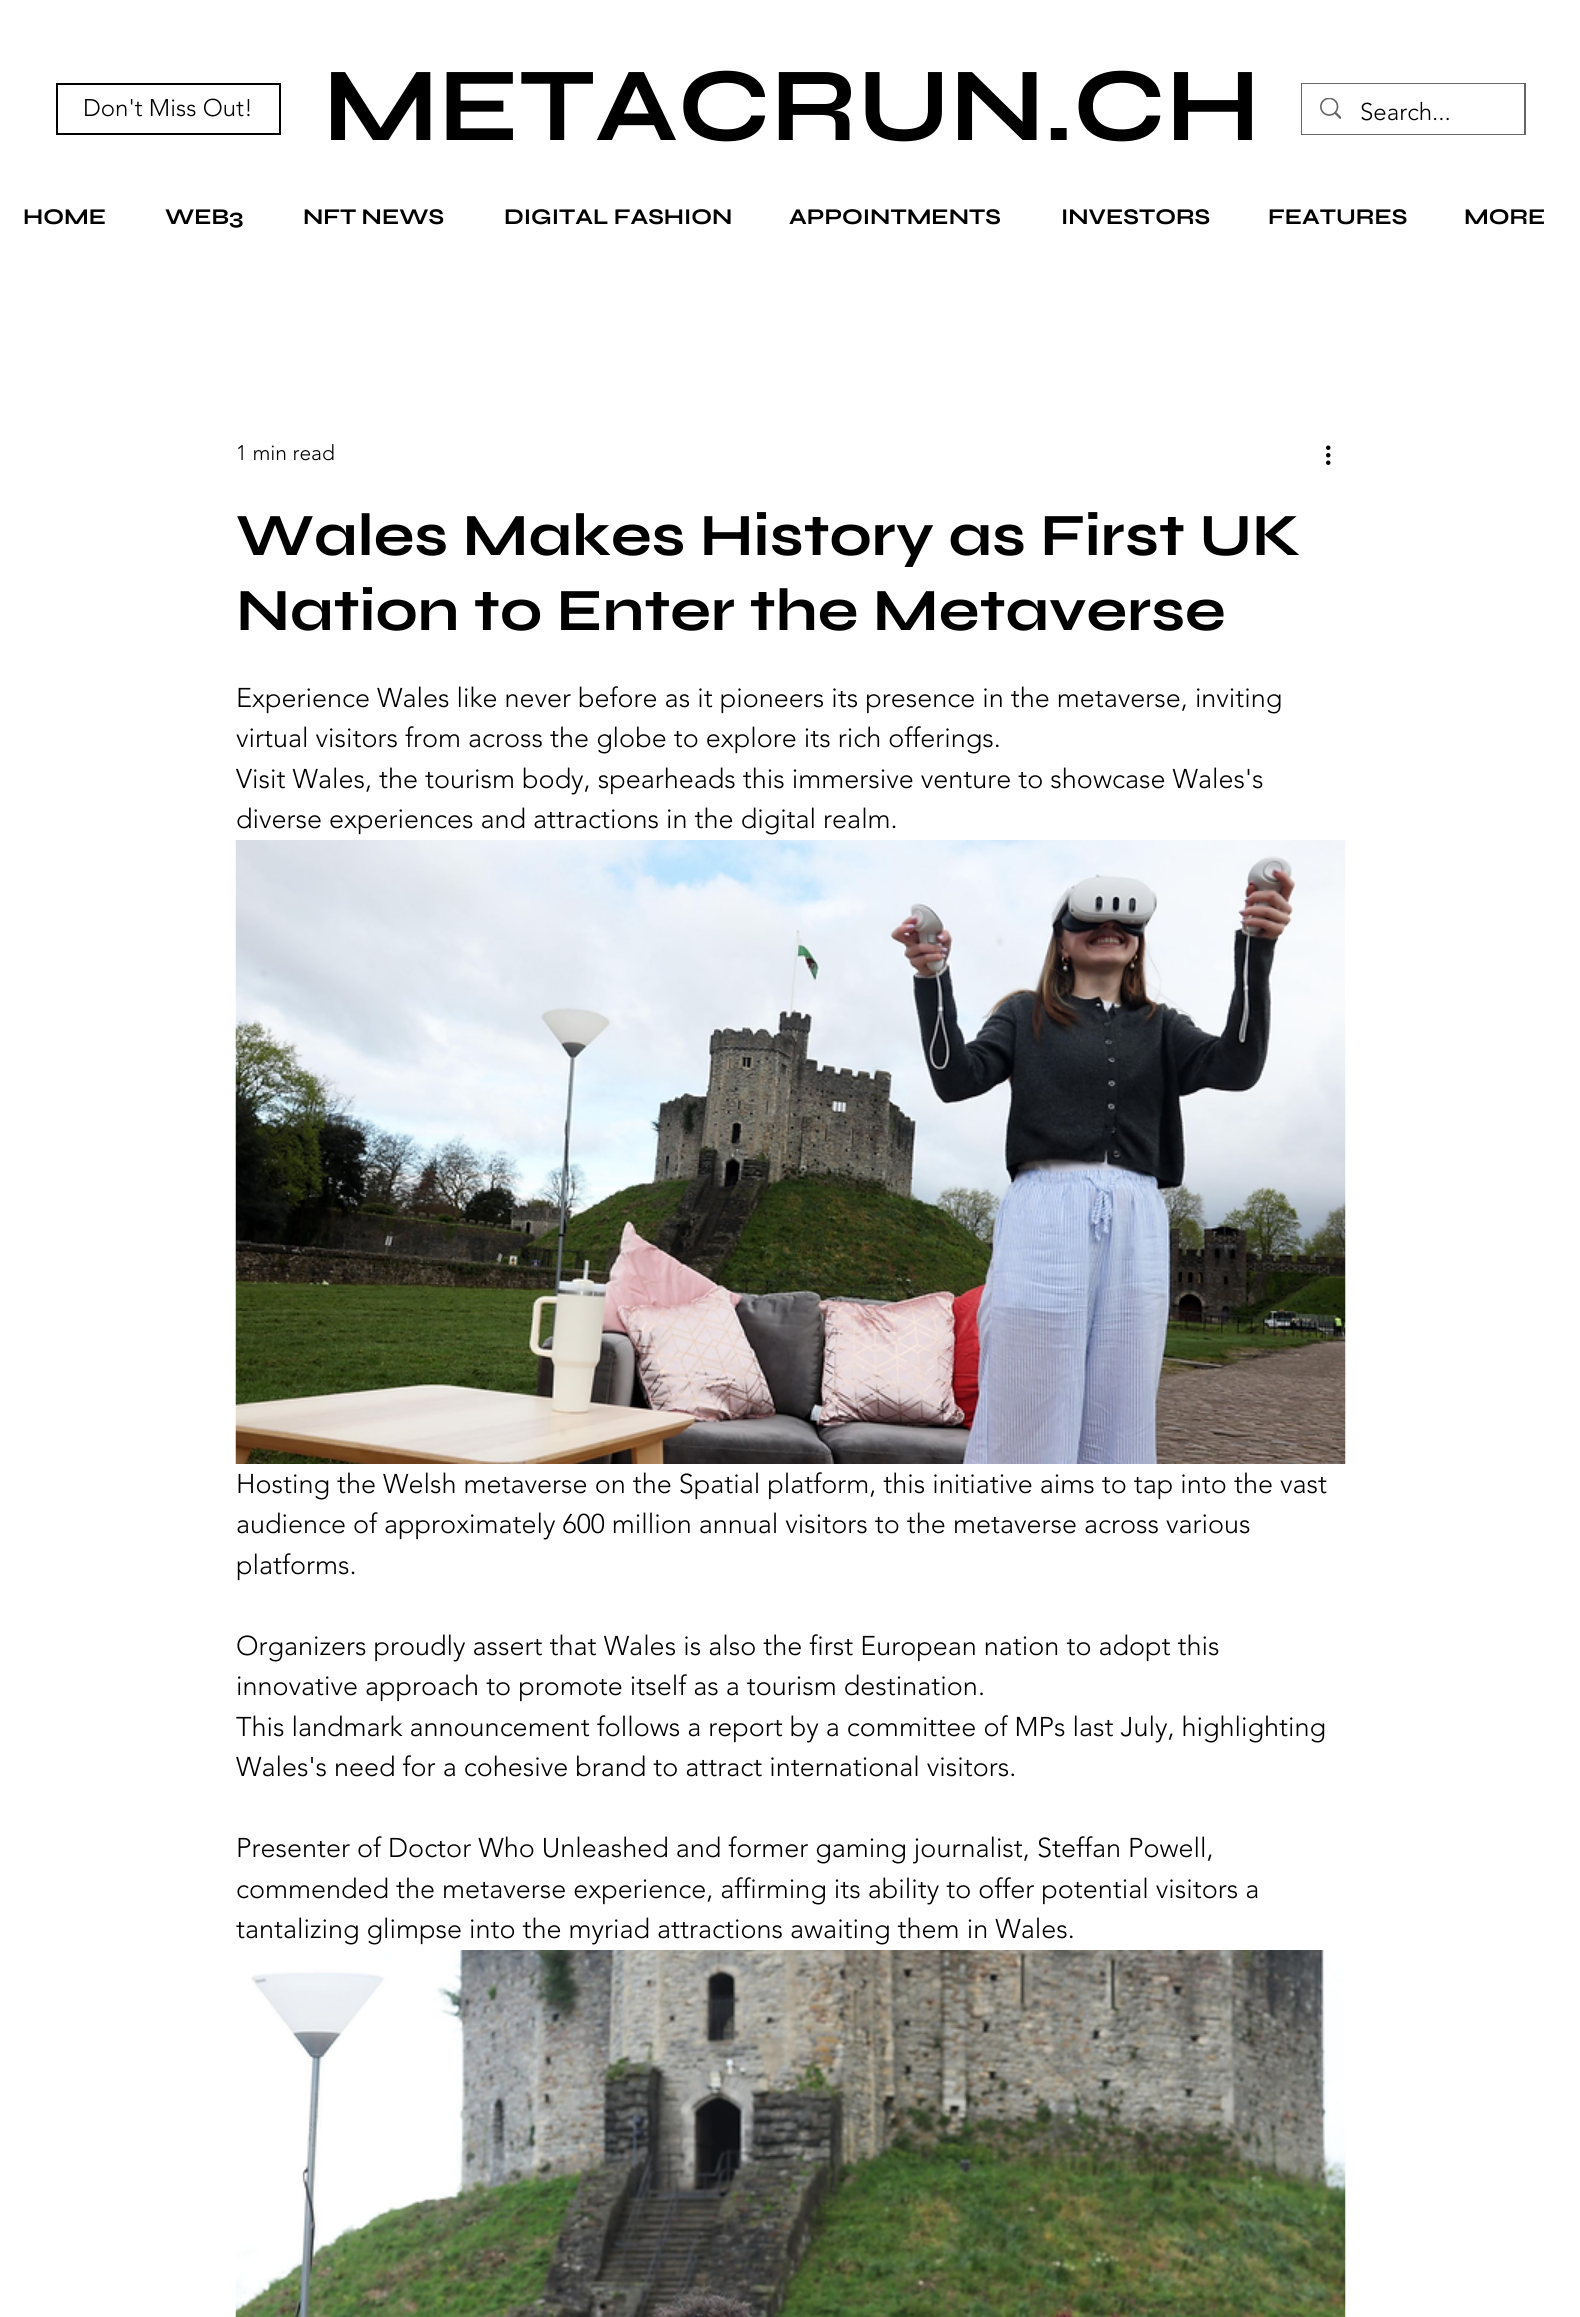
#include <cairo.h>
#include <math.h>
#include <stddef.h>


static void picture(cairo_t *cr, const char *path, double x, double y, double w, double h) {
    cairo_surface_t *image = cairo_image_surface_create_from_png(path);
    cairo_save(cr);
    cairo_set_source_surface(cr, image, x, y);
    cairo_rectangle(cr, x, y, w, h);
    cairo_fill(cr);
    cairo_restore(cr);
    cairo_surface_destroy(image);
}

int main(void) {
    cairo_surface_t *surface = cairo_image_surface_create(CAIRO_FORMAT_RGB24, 1580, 2317);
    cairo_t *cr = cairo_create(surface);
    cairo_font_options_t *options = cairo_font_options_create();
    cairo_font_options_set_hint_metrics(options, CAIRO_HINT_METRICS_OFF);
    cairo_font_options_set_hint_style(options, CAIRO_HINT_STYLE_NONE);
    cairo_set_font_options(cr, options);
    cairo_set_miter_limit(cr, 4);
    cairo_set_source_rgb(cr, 1, 1, 1);
    cairo_paint(cr);
    cairo_rectangle(cr, 57, 84, 223, 50);
    cairo_set_source_rgb(cr, 0, 0, 0);
    cairo_stroke(cr);
    cairo_select_font_face(cr, "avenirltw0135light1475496 Light", CAIRO_FONT_SLANT_NORMAL, CAIRO_FONT_WEIGHT_NORMAL);
    cairo_set_font_size(cr, 24);
    cairo_move_to(cr, 83, 116);
    cairo_show_text(cr, "Don't Miss Out!");
    cairo_select_font_face(cr, "Syne", CAIRO_FONT_SLANT_NORMAL, CAIRO_FONT_WEIGHT_BOLD);
    cairo_set_font_size(cr, 105);
    cairo_move_to(cr, 323, 140);
    cairo_show_text(cr, "METACRUN.CH");
    cairo_rectangle(cr, 1302, 84, 223, 50);
    cairo_set_source_rgb(cr, 0.4, 0.4, 0.4);
    cairo_stroke(cr);
    cairo_set_source_rgb(cr, 1, 1, 1);
    cairo_rectangle(cr, 1302, 84, 222, 50);
    cairo_fill(cr);
    picture(cr, "img1.png", 1320, 98, 21, 21);
    cairo_select_font_face(cr, "avenirltw0135light1475496 Light", CAIRO_FONT_SLANT_NORMAL, CAIRO_FONT_WEIGHT_NORMAL);
    cairo_set_font_size(cr, 24);
    cairo_set_source_rgb(cr, 0, 0, 0);
    cairo_move_to(cr, 1360, 120);
    cairo_show_text(cr, "Search...");
    cairo_select_font_face(cr, "Syne", CAIRO_FONT_SLANT_NORMAL, CAIRO_FONT_WEIGHT_BOLD);
    cairo_set_font_size(cr, 22.5);
    cairo_move_to(cr, 23, 224);
    cairo_show_text(cr, "HOME");
    cairo_move_to(cr, 165, 224);
    cairo_show_text(cr, "WEB3");
    cairo_move_to(cr, 303, 224);
    cairo_show_text(cr, "NFT NEWS");
    cairo_move_to(cr, 504, 224);
    cairo_show_text(cr, "DIGITAL FASHION");
    cairo_move_to(cr, 789, 224);
    cairo_show_text(cr, "APPOINTMENTS");
    cairo_move_to(cr, 1061, 224);
    cairo_show_text(cr, "INVESTORS");
    cairo_move_to(cr, 1268, 224);
    cairo_show_text(cr, "FEATURES");
    cairo_move_to(cr, 1464, 224);
    cairo_show_text(cr, "MORE");
    cairo_select_font_face(cr, "avenirltw0135light1475496 Light", CAIRO_FONT_SLANT_NORMAL, CAIRO_FONT_WEIGHT_NORMAL);
    cairo_set_font_size(cr, 21);
    cairo_move_to(cr, 236, 460);
    cairo_show_text(cr, "1 min read");
    picture(cr, "img2.png", 1326, 445, 5, 20);
    cairo_select_font_face(cr, "Syne", CAIRO_FONT_SLANT_NORMAL, CAIRO_FONT_WEIGHT_BOLD);
    cairo_set_font_size(cr, 60);
    cairo_move_to(cr, 236, 555);
    cairo_show_text(cr, "Wales Makes History as First UK");
    cairo_move_to(cr, 236, 630);
    cairo_show_text(cr, "Nation to Enter the Metaverse");
    cairo_select_font_face(cr, "avenirltw0135light1475496 Light", CAIRO_FONT_SLANT_NORMAL, CAIRO_FONT_WEIGHT_NORMAL);
    cairo_set_font_size(cr, 27);
    cairo_move_to(cr, 236, 707);
    cairo_show_text(cr, "Experience Wales like never before as it pioneers its presence in the metaverse, inviting");
    cairo_move_to(cr, 236, 747);
    cairo_show_text(cr, "virtual visitors from across the globe to explore its rich offerings.");
    cairo_move_to(cr, 236, 788);
    cairo_show_text(cr, "Visit Wales, the tourism body, spearheads this immersive venture to showcase Wales's");
    cairo_move_to(cr, 236, 828);
    cairo_show_text(cr, "diverse experiences and attractions in the digital realm.");
    picture(cr, "img3.png", 235, 840, 1111, 624);
    cairo_move_to(cr, 236, 1493);
    cairo_show_text(cr, "Hosting the Welsh metaverse on the Spatial platform, this initiative aims to tap into the vast");
    cairo_move_to(cr, 236, 1533);
    cairo_show_text(cr, "audience of approximately 600 million annual visitors to the metaverse across various");
    cairo_move_to(cr, 236, 1574);
    cairo_show_text(cr, "platforms.");
    cairo_move_to(cr, 236, 1655);
    cairo_show_text(cr, "Organizers proudly assert that Wales is also the first European nation to adopt this");
    cairo_move_to(cr, 236, 1695);
    cairo_show_text(cr, "innovative approach to promote itself as a tourism destination.");
    cairo_move_to(cr, 236, 1736);
    cairo_show_text(cr, "This landmark announcement follows a report by a committee of MPs last July, highlighting");
    cairo_move_to(cr, 236, 1776);
    cairo_show_text(cr, "Wales's need for a cohesive brand to attract international visitors.");
    cairo_move_to(cr, 236, 1857);
    cairo_show_text(cr, "Presenter of Doctor Who Unleashed and former gaming journalist, Steffan Powell,");
    cairo_move_to(cr, 236, 1898);
    cairo_show_text(cr, "commended the metaverse experience, affirming its ability to offer potential visitors a");
    cairo_move_to(cr, 236, 1938);
    cairo_show_text(cr, "tantalizing glimpse into the myriad attractions awaiting them in Wales.");
    picture(cr, "img4.png", 235, 1950, 1111, 367);
    cairo_surface_write_to_png(surface, "page.png");
    cairo_font_options_destroy(options);
    cairo_destroy(cr);
    cairo_surface_destroy(surface);
    return 0;
}
